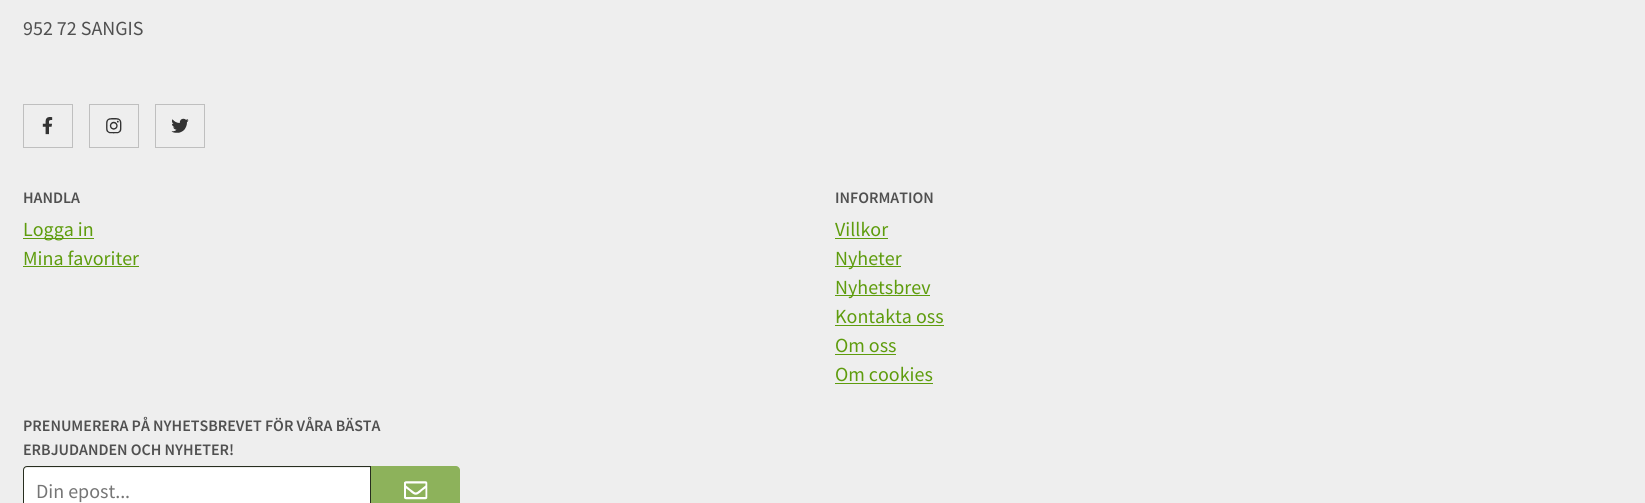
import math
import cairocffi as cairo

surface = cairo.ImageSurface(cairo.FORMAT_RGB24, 1645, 503)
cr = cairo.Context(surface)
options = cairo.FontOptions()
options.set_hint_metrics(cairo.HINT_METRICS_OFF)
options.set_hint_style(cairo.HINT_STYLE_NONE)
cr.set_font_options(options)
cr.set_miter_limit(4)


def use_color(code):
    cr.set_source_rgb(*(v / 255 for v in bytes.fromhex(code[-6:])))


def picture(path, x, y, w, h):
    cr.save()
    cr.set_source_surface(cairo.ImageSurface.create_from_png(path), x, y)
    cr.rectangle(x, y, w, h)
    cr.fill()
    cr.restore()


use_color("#eeeeee")
cr.paint()
cr.select_font_face("Source Sans Pro")
cr.set_font_size(20)
use_color("#505050")
cr.move_to(23, 35)
cr.show_text("952 72 SANGIS")
cr.rectangle(23.5, 104.5, 49, 43)
use_color("#bfbfbf")
cr.set_line_width(1)
cr.stroke()
picture("img1.png", 42, 117, 11, 18)
cr.rectangle(89.5, 104.5, 49, 43)
cr.stroke()
picture("img2.png", 106, 118, 16, 16)
cr.rectangle(155.5, 104.5, 49, 43)
cr.stroke()
picture("img3.png", 171, 118, 18, 15)
cr.select_font_face("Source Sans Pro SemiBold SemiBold")
cr.set_font_size(16)
use_color("#505050")
cr.move_to(23, 203)
cr.show_text("HANDLA")
use_color("#5e9c0d")
cr.rectangle(23, 238, 71, 1)
cr.fill()
cr.select_font_face("Source Sans Pro")
cr.set_font_size(20)
cr.move_to(23, 236)
cr.show_text("Logga in")
cr.move_to(23, 265)
cr.show_text("Mina favoriter")
cr.rectangle(23, 266, 116, 1)
cr.fill()
cr.select_font_face("Source Sans Pro SemiBold SemiBold")
cr.set_font_size(16)
use_color("#505050")
cr.move_to(835, 203)
cr.show_text("INFORMATION")
cr.select_font_face("Source Sans Pro")
cr.set_font_size(20)
use_color("#5e9c0d")
cr.move_to(835, 236)
cr.show_text("Villkor")
cr.rectangle(835, 238, 53, 1)
cr.fill()
cr.rectangle(835, 266, 66, 1)
cr.fill()
cr.move_to(835, 265)
cr.show_text("Nyheter")
cr.rectangle(835, 295, 95, 1)
cr.fill()
cr.move_to(835, 294)
cr.show_text("Nyhetsbrev")
cr.move_to(835, 323)
cr.show_text("Kontakta oss")
cr.rectangle(835, 325, 109, 1)
cr.fill()
cr.move_to(835, 352)
cr.show_text("Om oss")
cr.rectangle(835, 354, 61, 1)
cr.fill()
cr.move_to(835, 381)
cr.show_text("Om cookies")
cr.rectangle(835, 383, 98, 1)
cr.fill()
cr.select_font_face("Source Sans Pro SemiBold SemiBold")
cr.set_font_size(16)
use_color("#505050")
cr.move_to(23, 431)
cr.show_text("PRENUMERERA PÅ NYHETSBREVET FÖR VÅRA BÄSTA")
cr.move_to(23, 455)
cr.show_text("ERBJUDANDEN OCH NYHETER!")
use_color("#ffffff")
cr.new_path()
cr.move_to(26.5, 468)
cr.line_to(370, 468)
cr.line_to(370, 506)
cr.line_to(26.5, 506)
cr.curve_to(25, 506, 24, 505, 24, 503.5)
cr.line_to(24, 470.5)
cr.curve_to(24, 469, 25, 468, 26.5, 468)
cr.close_path()
cr.fill()
cr.new_path()
cr.move_to(27, 466.5)
cr.line_to(370.5, 466.5)
cr.line_to(370.5, 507.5)
cr.line_to(27, 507.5)
cr.curve_to(25, 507.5, 23.5, 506, 23.5, 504)
cr.line_to(23.5, 470)
cr.curve_to(23.5, 468, 25, 466.5, 27, 466.5)
cr.close_path()
use_color("#282e1f")
cr.stroke()
cr.select_font_face("Source Sans Pro")
cr.set_font_size(20)
use_color("#757575")
cr.move_to(36, 498)
cr.show_text("Din epost...")
use_color("#8db25b")
cr.new_path()
cr.move_to(371, 466)
cr.line_to(456, 466)
cr.curve_to(458, 466, 460, 468, 460, 470)
cr.line_to(460, 503)
cr.curve_to(460, 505, 458, 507, 456, 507)
cr.line_to(371, 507)
cr.close_path()
cr.fill()
picture("img4.png", 404, 481, 24, 19)
surface.write_to_png("result.png")
